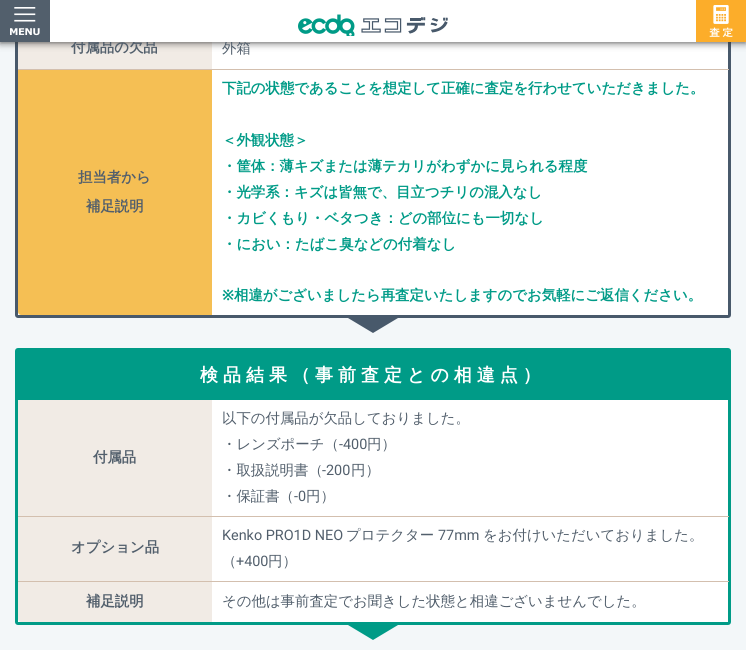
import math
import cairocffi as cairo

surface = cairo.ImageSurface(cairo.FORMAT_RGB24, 746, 650)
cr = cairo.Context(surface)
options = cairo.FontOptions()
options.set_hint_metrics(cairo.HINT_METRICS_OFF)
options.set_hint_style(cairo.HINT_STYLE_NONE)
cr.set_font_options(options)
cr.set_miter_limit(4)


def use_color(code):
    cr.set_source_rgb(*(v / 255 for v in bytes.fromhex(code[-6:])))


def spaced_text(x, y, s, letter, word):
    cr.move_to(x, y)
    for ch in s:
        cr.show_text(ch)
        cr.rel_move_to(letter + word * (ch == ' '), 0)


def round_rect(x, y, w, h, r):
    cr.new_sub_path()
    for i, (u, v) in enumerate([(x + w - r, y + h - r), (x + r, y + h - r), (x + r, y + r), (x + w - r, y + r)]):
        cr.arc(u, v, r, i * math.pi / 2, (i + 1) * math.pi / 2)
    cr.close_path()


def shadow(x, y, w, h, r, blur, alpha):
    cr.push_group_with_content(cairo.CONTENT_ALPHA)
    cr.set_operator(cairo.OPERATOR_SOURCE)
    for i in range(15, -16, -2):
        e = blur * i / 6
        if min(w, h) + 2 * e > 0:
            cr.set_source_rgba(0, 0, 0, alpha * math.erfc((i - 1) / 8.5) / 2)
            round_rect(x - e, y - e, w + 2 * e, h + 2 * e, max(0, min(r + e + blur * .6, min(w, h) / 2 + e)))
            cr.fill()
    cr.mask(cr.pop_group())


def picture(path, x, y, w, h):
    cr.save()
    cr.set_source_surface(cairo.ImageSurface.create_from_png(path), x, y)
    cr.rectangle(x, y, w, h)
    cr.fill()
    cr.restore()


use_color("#f3f7f9")
cr.paint()
use_color("#ffffff")
round_rect(16.5, -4.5, 713, 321, 1.5)
cr.fill_preserve()
use_color("#48596b")
cr.set_line_width(3)
cr.stroke()
use_color("#f1ebe5")
cr.rectangle(18, 42, 194, 27)
cr.fill()
use_color("#333333")
shadow(0, 0, 746, 42, 0, 4, 1)
cr.select_font_face("WenQuanYi Zen Hei", cairo.FONT_SLANT_NORMAL, cairo.FONT_WEIGHT_BOLD)
cr.set_font_size(14.4)
use_color("#525f6c")
cr.move_to(71, 52)
cr.show_text("付属品の欠品")
cr.select_font_face("WenQuanYi Zen Hei Medium")
cr.move_to(222, 53)
cr.show_text("外箱")
use_color("#ffffff")
cr.rectangle(50, 0, 646, 42)
cr.fill()
use_color("#525f6c")
cr.rectangle(0, 0, 50, 42)
cr.fill()
picture("img1.png", 10, 7, 30, 29)
picture("img2.png", 298, 14, 150, 22)
use_color("#fcad2a")
cr.rectangle(696, 0, 50, 42)
cr.fill()
picture("img3.png", 709, 5, 24, 32)
use_color("#d3bfae")
cr.rectangle(18, 69, 711, 1)
cr.fill()
use_color("#f5bf54")
cr.new_path()
cr.move_to(18, 70)
cr.line_to(212, 70)
cr.line_to(212, 315)
cr.line_to(21, 315)
cr.curve_to(19.5, 315, 18, 313.5, 18, 312)
cr.close_path()
cr.fill()
cr.select_font_face("WenQuanYi Zen Hei", cairo.FONT_SLANT_NORMAL, cairo.FONT_WEIGHT_BOLD)
use_color("#525f6c")
cr.move_to(78, 182)
cr.show_text("担当者から")
cr.move_to(86, 211)
cr.show_text("補足説明")
use_color("#009b87")
cr.move_to(222, 93)
cr.show_text("下記の状態であることを想定して正確に査定を行わせていただきました。")
cr.move_to(222, 145)
cr.show_text("＜外観状態＞")
cr.move_to(222, 171)
cr.show_text("・筐体：薄キズまたは薄テカリがわずかに見られる程度")
cr.move_to(222, 197)
cr.show_text("・光学系：キズは皆無で、目立つチリの混入なし")
cr.move_to(222, 223)
cr.show_text("・カビくもり・ベタつき：どの部位にも一切なし")
cr.move_to(222, 249)
cr.show_text("・におい：たばこ臭などの付着なし")
cr.select_font_face("Noto Sans", cairo.FONT_SLANT_NORMAL, cairo.FONT_WEIGHT_BOLD)
cr.move_to(222, 300)
cr.show_text("※")
cr.select_font_face("WenQuanYi Zen Hei", cairo.FONT_SLANT_NORMAL, cairo.FONT_WEIGHT_BOLD)
cr.move_to(234, 300)
cr.show_text("相違がございましたら再査定いたしますのでお気軽にご返信ください。")
use_color("#48596b")
cr.new_path()
cr.move_to(348, 318)
cr.line_to(398, 318)
cr.line_to(373, 333)
cr.close_path()
cr.fill()
use_color("#ffffff")
round_rect(16.5, 349.5, 713, 274, 1.5)
cr.fill_preserve()
use_color("#009b87")
cr.stroke()
cr.rectangle(18, 351, 710, 49)
cr.fill()
cr.set_font_size(18)
use_color("#ffffff")
spaced_text(200, 381, "検品結果（事前査定との相違点）", 5, 0)
use_color("#d3bfae")
cr.rectangle(18, 516, 711, 1)
cr.fill()
use_color("#f1ebe5")
cr.rectangle(18, 400, 194, 116)
cr.fill()
cr.set_font_size(14.4)
use_color("#525f6c")
cr.move_to(93, 462)
cr.show_text("付属品")
cr.select_font_face("WenQuanYi Zen Hei Medium")
cr.move_to(222, 423)
cr.show_text("以下の付属品が欠品しておりました。")
cr.move_to(222, 449)
cr.show_text("・レンズポーチ（")
cr.select_font_face("Roboto")
cr.move_to(339, 449)
cr.show_text("-400")
cr.select_font_face("WenQuanYi Zen Hei Medium")
cr.move_to(367, 449)
cr.show_text("円）")
cr.move_to(222, 475)
cr.show_text("・取扱説明書（")
cr.select_font_face("Roboto")
cr.move_to(322, 475)
cr.show_text("-200")
cr.select_font_face("WenQuanYi Zen Hei Medium")
cr.move_to(351, 475)
cr.show_text("円）")
cr.move_to(222, 501)
cr.show_text("・保証書（")
cr.select_font_face("Roboto")
cr.move_to(294, 501)
cr.show_text("-0")
cr.select_font_face("WenQuanYi Zen Hei Medium")
cr.move_to(306, 501)
cr.show_text("円）")
use_color("#f1ebe5")
cr.new_path()
cr.move_to(18, 581)
cr.line_to(212, 581)
cr.line_to(212, 622)
cr.line_to(21, 622)
cr.curve_to(19.5, 622, 18, 620.5, 18, 619)
cr.close_path()
cr.fill()
use_color("#d3bfae")
cr.rectangle(18, 581, 711, 1)
cr.fill()
use_color("#f1ebe5")
cr.rectangle(18, 517, 194, 64)
cr.fill()
cr.select_font_face("WenQuanYi Zen Hei", cairo.FONT_SLANT_NORMAL, cairo.FONT_WEIGHT_BOLD)
use_color("#525f6c")
cr.move_to(71, 552)
cr.show_text("オプション品")
cr.select_font_face("Roboto")
cr.move_to(222, 540)
cr.show_text("Kenko PRO1D NEO")
cr.select_font_face("WenQuanYi Zen Hei Medium")
cr.move_to(346, 540)
cr.show_text("プロテクター")
cr.select_font_face("Roboto")
cr.move_to(438, 540)
cr.show_text("77mm")
cr.select_font_face("WenQuanYi Zen Hei Medium")
cr.move_to(483, 540)
cr.show_text("をお付けいただいておりました。")
cr.move_to(222, 566)
cr.show_text("（")
cr.select_font_face("Roboto")
cr.move_to(236, 566)
cr.show_text("+400")
cr.select_font_face("WenQuanYi Zen Hei Medium")
cr.move_to(268, 566)
cr.show_text("円）")
cr.select_font_face("WenQuanYi Zen Hei", cairo.FONT_SLANT_NORMAL, cairo.FONT_WEIGHT_BOLD)
cr.move_to(86, 606)
cr.show_text("補足説明")
cr.select_font_face("WenQuanYi Zen Hei Medium")
cr.move_to(222, 606)
cr.show_text("その他は事前査定でお聞きした状態と相違ございませんでした。")
use_color("#009b87")
cr.new_path()
cr.move_to(348, 625)
cr.line_to(398, 625)
cr.line_to(373, 640)
cr.close_path()
cr.fill()
surface.write_to_png("result.png")
